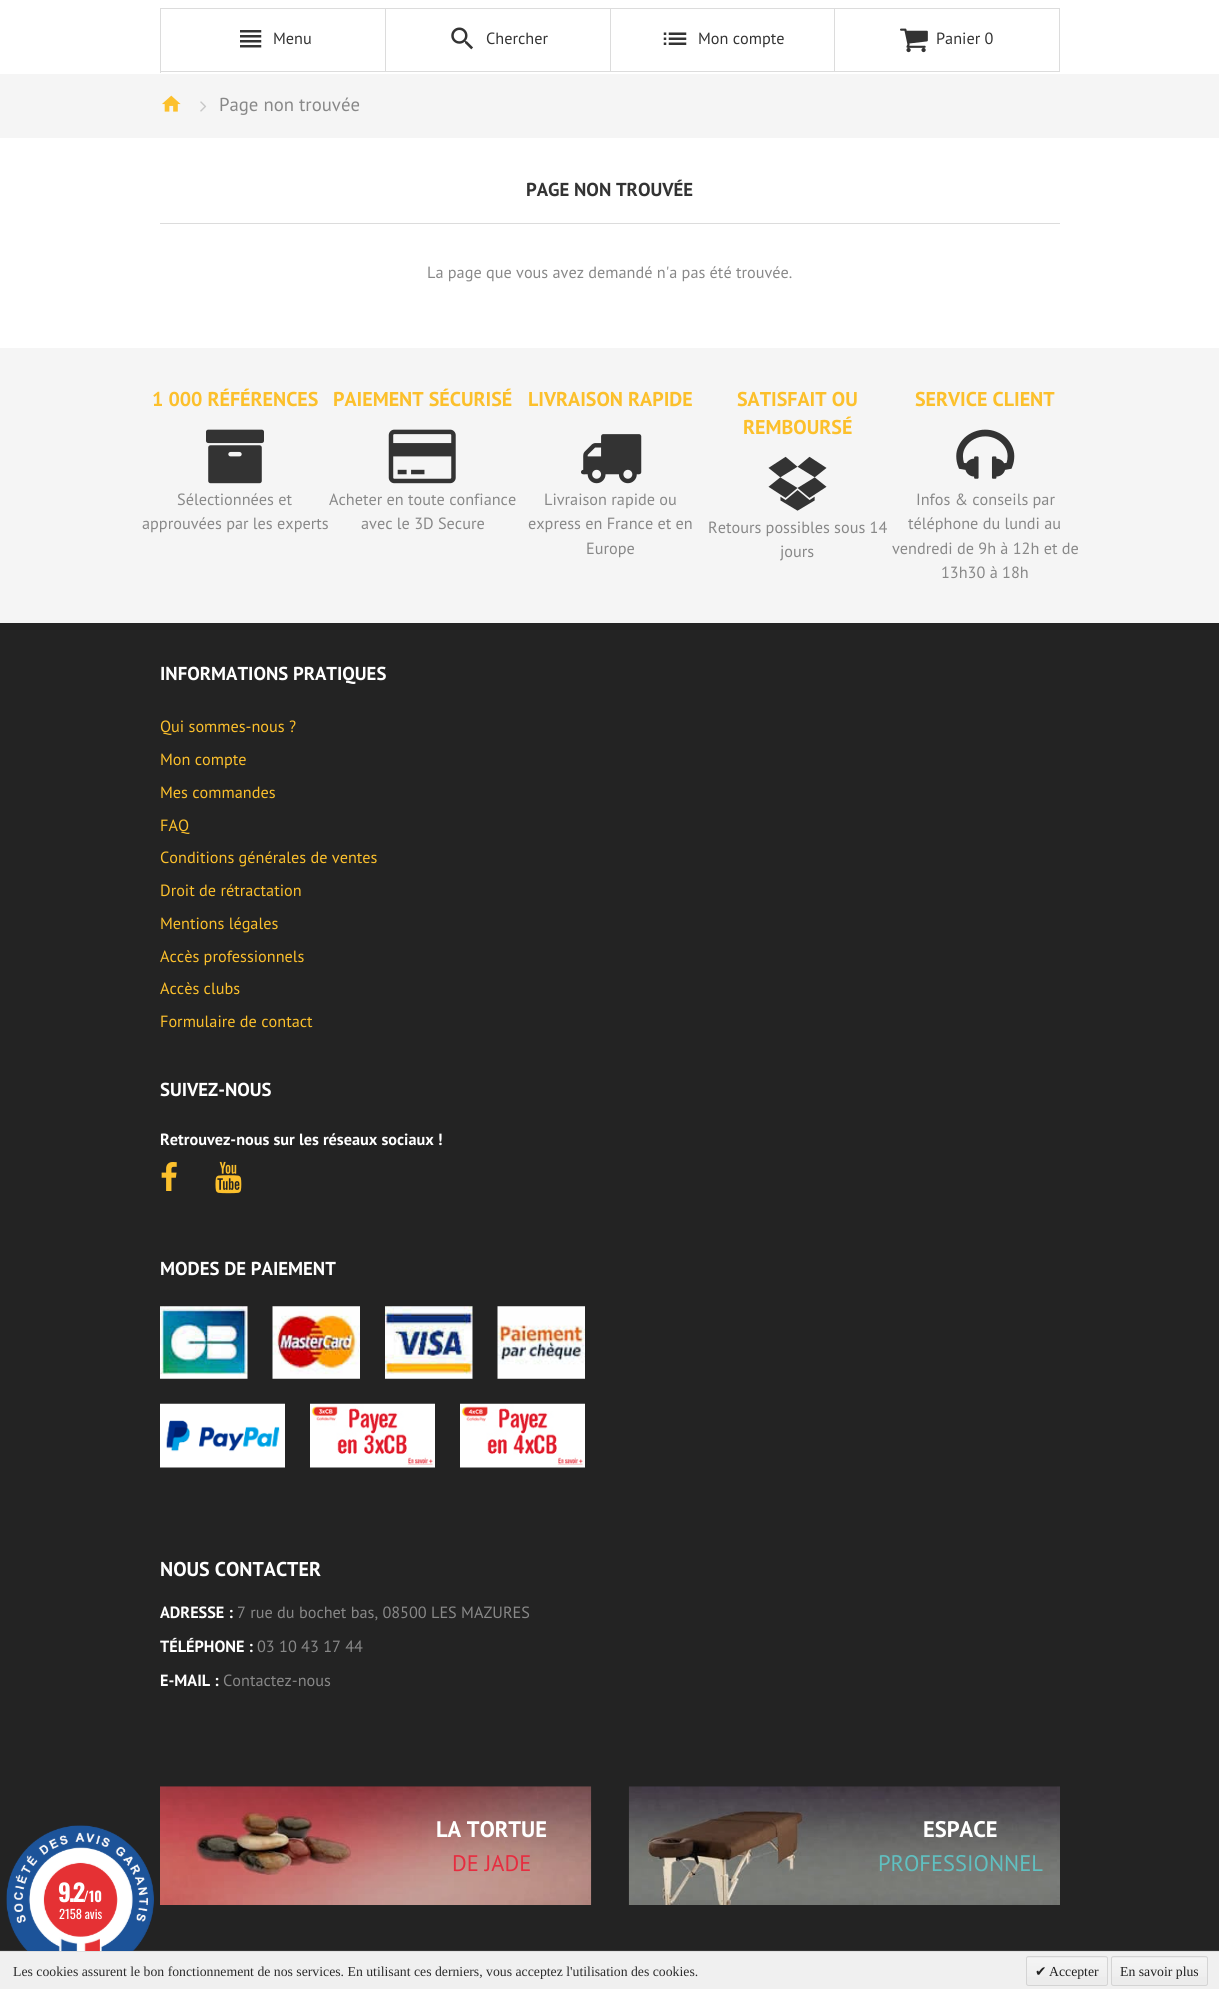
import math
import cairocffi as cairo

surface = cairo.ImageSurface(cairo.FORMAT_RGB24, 1219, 1989)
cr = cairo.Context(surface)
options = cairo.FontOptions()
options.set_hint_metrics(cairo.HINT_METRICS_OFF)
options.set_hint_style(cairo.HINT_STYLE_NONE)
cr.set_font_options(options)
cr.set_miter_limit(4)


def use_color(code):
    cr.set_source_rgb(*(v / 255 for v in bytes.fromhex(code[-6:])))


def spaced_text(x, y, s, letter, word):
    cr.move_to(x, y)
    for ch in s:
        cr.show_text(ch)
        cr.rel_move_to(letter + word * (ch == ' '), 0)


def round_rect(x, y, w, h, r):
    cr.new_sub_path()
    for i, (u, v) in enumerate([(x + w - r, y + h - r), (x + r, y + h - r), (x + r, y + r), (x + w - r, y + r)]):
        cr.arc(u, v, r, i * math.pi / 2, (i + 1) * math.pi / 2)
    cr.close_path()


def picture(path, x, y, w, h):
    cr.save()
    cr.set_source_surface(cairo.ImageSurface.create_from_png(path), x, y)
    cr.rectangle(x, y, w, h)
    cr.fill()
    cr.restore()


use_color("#ffffff")
cr.paint()
use_color("#dcdcdc")
cr.rectangle(160, 8, 900, 1)
cr.fill()
cr.rectangle(160, 71, 900, 1)
cr.fill()
cr.rectangle(160, 8, 1, 65)
cr.fill()
cr.rectangle(385, 9, 1, 62)
cr.fill()
picture("img1.png", 240, 30, 22, 18)
cr.select_font_face("PT Sans")
cr.set_font_size(16.25)
use_color("#333333")
cr.move_to(273, 44)
cr.show_text("Menu")
use_color("#dcdcdc")
cr.rectangle(610, 9, 1, 62)
cr.fill()
picture("img2.png", 451, 27, 22, 23)
use_color("#333333")
cr.move_to(486, 44)
cr.show_text("Chercher")
use_color("#dcdcdc")
cr.rectangle(834, 9, 1, 62)
cr.fill()
picture("img3.png", 663, 32, 24, 13)
use_color("#333333")
cr.move_to(698, 44)
cr.show_text("Mon compte")
use_color("#dcdcdc")
cr.rectangle(1059, 9, 1, 62)
cr.fill()
picture("img4.png", 900, 28, 28, 25)
use_color("#333333")
cr.move_to(936, 44)
cr.show_text("Panier 0")
use_color("#f5f5f5")
cr.rectangle(0, 74, 1219, 64)
cr.fill()
picture("img5.png", 162, 95, 19, 17)
picture("img6.png", 200, 101, 7, 11)
cr.set_font_size(18.75)
use_color("#888888")
cr.move_to(219, 111)
cr.show_text("Page non trouvée")
use_color("#dcdcdc")
cr.rectangle(160, 223, 900, 1)
cr.fill()
cr.select_font_face("PT Sans", cairo.FONT_SLANT_NORMAL, cairo.FONT_WEIGHT_BOLD)
use_color("#333333")
cr.move_to(526, 196)
cr.show_text("PAGE NON TROUVÉE")
cr.select_font_face("PT Sans")
cr.set_font_size(16.25)
use_color("#888888")
cr.move_to(427, 278)
cr.show_text("La page que vous avez demandé n'a pas été trouvée.")
use_color("#f5f5f5")
cr.rectangle(0, 348, 1219, 275)
cr.fill()
cr.select_font_face("PT Sans", cairo.FONT_SLANT_NORMAL, cairo.FONT_WEIGHT_BOLD)
cr.set_font_size(20)
use_color("#fcc02c")
cr.move_to(152, 406)
cr.show_text("1 000 RÉFÉRENCES")
picture("img7.png", 206, 429, 58, 55)
cr.select_font_face("PT Sans")
cr.set_font_size(16.25)
use_color("#888888")
cr.move_to(177, 505)
cr.show_text("Sélectionnées et")
cr.move_to(142, 529)
cr.show_text("approuvées par les experts")
cr.select_font_face("PT Sans", cairo.FONT_SLANT_NORMAL, cairo.FONT_WEIGHT_BOLD)
cr.set_font_size(20)
use_color("#fcc02c")
cr.move_to(333, 406)
cr.show_text("PAIEMENT SÉCURISÉ")
picture("img8.png", 388, 429, 68, 55)
cr.select_font_face("PT Sans")
cr.set_font_size(16.25)
use_color("#888888")
cr.move_to(329, 505)
cr.show_text("Acheter en toute confiance")
cr.move_to(361, 529)
cr.show_text("avec le 3D Secure")
cr.select_font_face("PT Sans", cairo.FONT_SLANT_NORMAL, cairo.FONT_WEIGHT_BOLD)
cr.set_font_size(20)
use_color("#fcc02c")
cr.move_to(528, 406)
cr.show_text("LIVRAISON RAPIDE")
picture("img9.png", 581, 434, 61, 50)
cr.select_font_face("PT Sans")
cr.set_font_size(16.25)
use_color("#888888")
cr.move_to(544, 505)
cr.show_text("Livraison rapide ou")
cr.move_to(528, 529)
cr.show_text("express en France et en")
cr.move_to(586, 554)
cr.show_text("Europe")
cr.select_font_face("PT Sans", cairo.FONT_SLANT_NORMAL, cairo.FONT_WEIGHT_BOLD)
cr.set_font_size(20)
use_color("#fcc02c")
cr.move_to(737, 406)
cr.show_text("SATISFAIT OU")
cr.move_to(743, 434)
cr.show_text("REMBOURSÉ")
picture("img10.png", 768, 456, 59, 55)
cr.select_font_face("PT Sans")
cr.set_font_size(16.25)
use_color("#888888")
cr.move_to(708, 533)
cr.show_text("Retours possibles sous 14")
cr.move_to(780, 557)
cr.show_text("jours")
cr.select_font_face("PT Sans", cairo.FONT_SLANT_NORMAL, cairo.FONT_WEIGHT_BOLD)
cr.set_font_size(20)
use_color("#fcc02c")
cr.move_to(915, 406)
cr.show_text("SERVICE CLIENT")
picture("img11.png", 956, 429, 59, 50)
cr.select_font_face("PT Sans")
cr.set_font_size(16.25)
use_color("#888888")
cr.move_to(916, 505)
cr.show_text("Infos & conseils par")
cr.move_to(908, 529)
cr.show_text("téléphone du lundi au")
cr.move_to(892, 554)
cr.show_text("vendredi de 9h à 12h et de")
cr.move_to(941, 578)
cr.show_text("13h30 à 18h")
use_color("#232323")
cr.rectangle(0, 623, 1219, 1327)
cr.fill()
cr.select_font_face("PT Sans", cairo.FONT_SLANT_NORMAL, cairo.FONT_WEIGHT_BOLD)
cr.set_font_size(18.75)
use_color("#ffffff")
cr.move_to(160, 680)
cr.show_text("INFORMATIONS PRATIQUES")
cr.select_font_face("PT Sans")
cr.set_font_size(16.25)
use_color("#fcc02c")
cr.move_to(160, 732)
cr.show_text("Qui sommes-nous ?")
cr.move_to(160, 765)
cr.show_text("Mon compte")
cr.move_to(160, 798)
cr.show_text("Mes commandes")
cr.move_to(160, 831)
cr.show_text("FAQ")
cr.move_to(160, 863)
cr.show_text("Conditions générales de ventes")
cr.move_to(160, 896)
cr.show_text("Droit de rétractation")
cr.move_to(160, 929)
cr.show_text("Mentions légales")
cr.move_to(160, 962)
cr.show_text("Accès professionnels")
cr.move_to(160, 994)
cr.show_text("Accès clubs")
cr.move_to(160, 1027)
cr.show_text("Formulaire de contact")
cr.select_font_face("PT Sans", cairo.FONT_SLANT_NORMAL, cairo.FONT_WEIGHT_BOLD)
cr.set_font_size(18.75)
use_color("#ffffff")
cr.move_to(160, 1096)
cr.show_text("SUIVEZ-NOUS")
cr.set_font_size(16.25)
cr.move_to(160, 1145)
cr.show_text("Retrouvez-nous sur les réseaux sociaux !")
picture("img12.png", 161, 1162, 16, 29)
picture("img13.png", 215, 1161, 27, 33)
cr.set_font_size(18.75)
cr.move_to(160, 1275)
cr.show_text("MODES DE PAIEMENT")
picture("img14.png", 160, 1306, 88, 73)
picture("img15.png", 272, 1306, 88, 73)
picture("img16.png", 385, 1306, 88, 73)
picture("img17.png", 497, 1306, 88, 73)
picture("img18.png", 160, 1403, 125, 65)
picture("img19.png", 310, 1403, 125, 65)
picture("img20.png", 460, 1403, 125, 65)
cr.set_font_size(20)
cr.move_to(160, 1576)
cr.show_text("NOUS CONTACTER")
cr.set_font_size(16.25)
cr.move_to(160, 1618)
cr.show_text("ADRESSE :")
cr.select_font_face("PT Sans")
use_color("#888888")
cr.move_to(237, 1618)
cr.show_text("7 rue du bochet bas, 08500 LES MAZURES")
cr.select_font_face("PT Sans", cairo.FONT_SLANT_NORMAL, cairo.FONT_WEIGHT_BOLD)
use_color("#ffffff")
cr.move_to(160, 1652)
cr.show_text("TÉLÉPHONE :")
cr.select_font_face("PT Sans")
use_color("#888888")
cr.move_to(257, 1652)
cr.show_text("03 10 43 17 44")
cr.select_font_face("PT Sans", cairo.FONT_SLANT_NORMAL, cairo.FONT_WEIGHT_BOLD)
use_color("#ffffff")
cr.move_to(160, 1686)
cr.show_text("E-MAIL :")
cr.select_font_face("PT Sans")
use_color("#888888")
cr.move_to(223, 1686)
cr.show_text("Contactez-nous")
picture("img21.png", 160, 1786, 432, 119)
cr.select_font_face("PT Sans", cairo.FONT_SLANT_NORMAL, cairo.FONT_WEIGHT_BOLD)
cr.set_font_size(22.5)
use_color("#ffffff")
cr.move_to(436, 1837)
cr.show_text("LA TORTUE")
cr.select_font_face("PT Sans")
use_color("#e62d40")
cr.move_to(452, 1871)
cr.show_text("DE JADE")
picture("img22.png", 628, 1786, 432, 119)
cr.select_font_face("PT Sans", cairo.FONT_SLANT_NORMAL, cairo.FONT_WEIGHT_BOLD)
use_color("#ffffff")
cr.move_to(923, 1837)
cr.show_text("ESPACE")
cr.select_font_face("PT Sans")
use_color("#60c0c1")
cr.move_to(878, 1871)
cr.show_text("PROFESSIONNEL")
use_color("#363636")
cr.rectangle(0, 1950, 1219, 1)
cr.fill()
picture("img23.png", 6, 1825, 148, 126)
cr.select_font_face("Oswald", cairo.FONT_SLANT_NORMAL, cairo.FONT_WEIGHT_BOLD)
cr.set_font_size(24)
use_color("#ffffff")
spaced_text(58, 1902, "9.2", -2, 0)
cr.set_font_size(14)
cr.move_to(83, 1902)
cr.show_text("/10")
cr.select_font_face("Oswald")
cr.set_font_size(12.5)
cr.move_to(59, 1919)
cr.show_text("2158 avis")
use_color("#f0f0f0")
cr.rectangle(0, 1952, 1219, 37)
cr.fill()
use_color("#e0e0e0")
cr.rectangle(0, 1951, 1219, 1)
cr.fill()
cr.select_font_face("Liberation Serif")
cr.set_font_size(13.75)
use_color("#2c2c2c")
cr.move_to(13, 1976)
cr.show_text("Les cookies assurent le bon fonctionnement de nos services. En utilisant ces derniers, vous acceptez l'utilisation des cookies.")
use_color("#ececec")
round_rect(1026, 1956, 82, 30, 2.5)
cr.fill()
gradient = cairo.LinearGradient(1067, 1958, 1067, 1985)
gradient.add_color_stop_rgba(0, 0.957, 0.957, 0.957, 1)
gradient.add_color_stop_rgba(1, 0.925, 0.925, 0.925, 1)
cr.set_source(gradient)
cr.rectangle(1026, 1958, 82, 19)
cr.fill()
round_rect(1026.5, 1956.5, 81, 29, 2)
use_color("#d4d4d4")
cr.set_line_width(1)
cr.stroke()
cr.select_font_face("DejaVu Sans")
use_color("#222222")
cr.move_to(1035, 1976)
cr.show_text("✔")
cr.select_font_face("Liberation Serif")
cr.move_to(1049, 1976)
cr.show_text("Accepter")
use_color("#ececec")
round_rect(1111, 1956, 97, 30, 2.5)
cr.fill()
gradient = cairo.LinearGradient(1159, 1958, 1159, 1985)
gradient.add_color_stop_rgba(0, 0.957, 0.957, 0.957, 1)
gradient.add_color_stop_rgba(1, 0.925, 0.925, 0.925, 1)
cr.set_source(gradient)
cr.rectangle(1111, 1958, 97, 19)
cr.fill()
round_rect(1111.5, 1956.5, 96, 29, 2)
use_color("#d4d4d4")
cr.stroke()
use_color("#222222")
cr.move_to(1120, 1976)
cr.show_text("En savoir plus")
surface.write_to_png("result.png")
